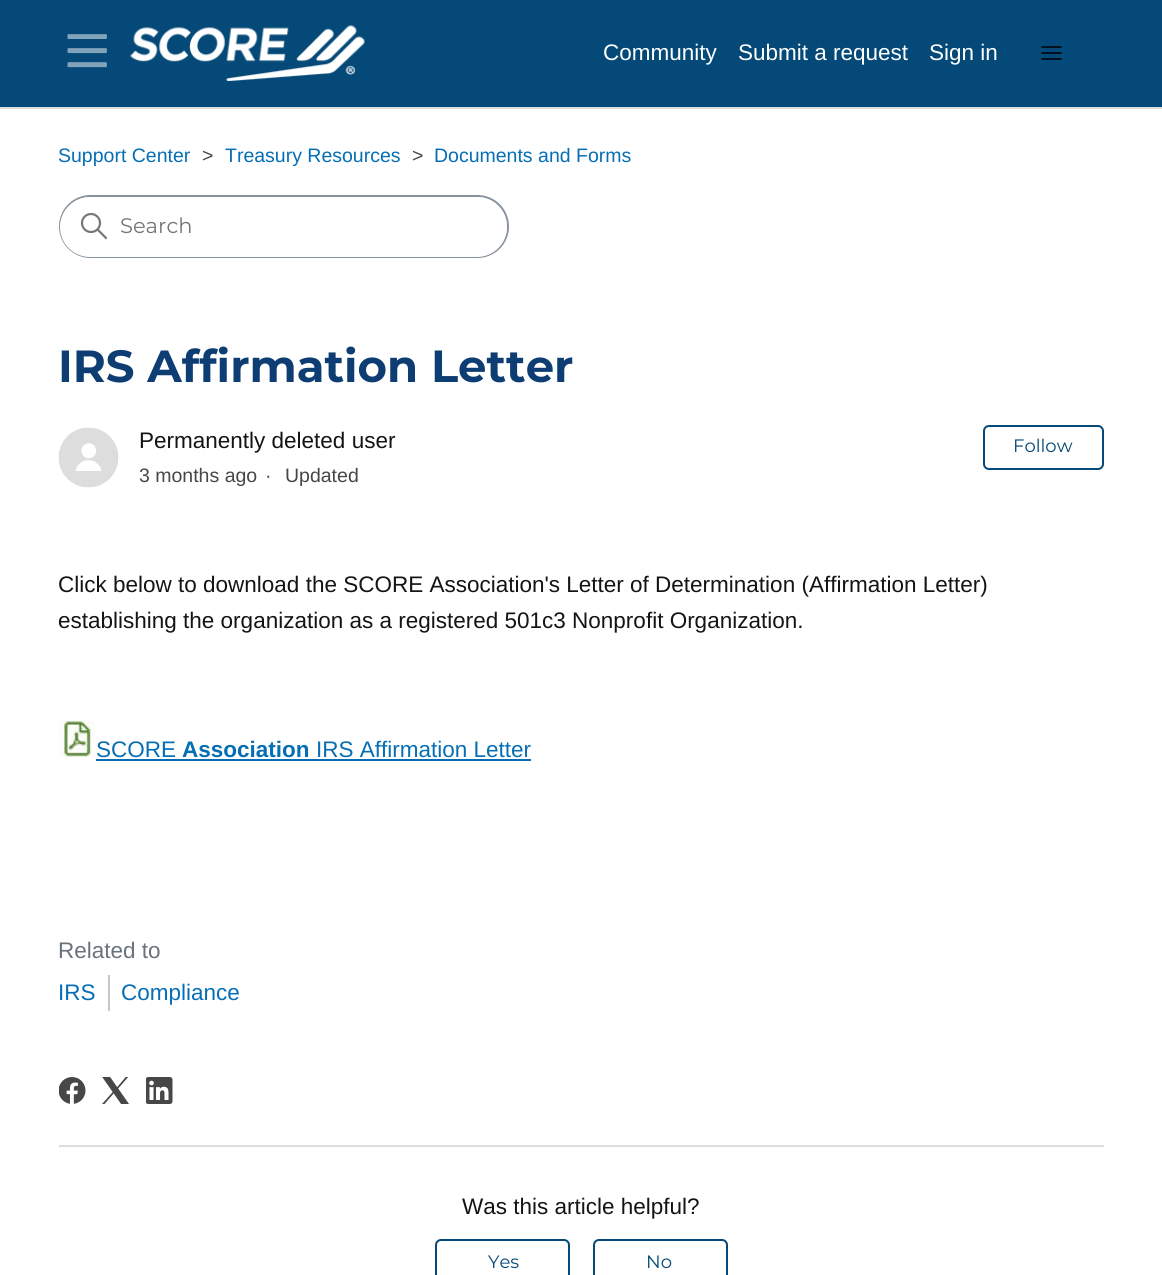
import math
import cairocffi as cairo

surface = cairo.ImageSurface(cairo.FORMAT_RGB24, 1162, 1275)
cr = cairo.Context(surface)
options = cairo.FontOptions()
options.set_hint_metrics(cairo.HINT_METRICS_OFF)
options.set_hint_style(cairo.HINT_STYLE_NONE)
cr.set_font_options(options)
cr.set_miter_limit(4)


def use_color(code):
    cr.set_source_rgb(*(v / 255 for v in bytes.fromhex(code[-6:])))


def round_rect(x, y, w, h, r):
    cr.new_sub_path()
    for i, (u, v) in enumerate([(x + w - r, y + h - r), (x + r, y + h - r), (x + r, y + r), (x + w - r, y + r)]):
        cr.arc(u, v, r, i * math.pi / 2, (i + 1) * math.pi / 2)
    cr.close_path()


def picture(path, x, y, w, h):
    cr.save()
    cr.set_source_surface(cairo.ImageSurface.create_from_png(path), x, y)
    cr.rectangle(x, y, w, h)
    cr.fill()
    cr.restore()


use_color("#ffffff")
cr.paint()
use_color("#044977")
cr.rectangle(0, 0, 1162, 107)
cr.fill()
picture("img1.png", 67, 34, 40, 34)
picture("img2.png", 130, 25, 235, 56)
cr.select_font_face("Liberation Sans")
cr.set_font_size(22.5)
use_color("#ffffff")
cr.move_to(603, 60)
cr.show_text("Community")
cr.move_to(738, 60)
cr.show_text("Submit a request")
cr.move_to(929, 60)
cr.show_text("Sign in")
cr.new_path()
cr.move_to(1042, 47)
cr.line_to(1061, 47)
cr.move_to(1042, 53)
cr.line_to(1061, 53)
cr.move_to(1042, 59)
cr.line_to(1061, 59)
use_color("#000000")
cr.set_line_width(1.5)
cr.set_line_cap(cairo.LINE_CAP_ROUND)
cr.stroke()
use_color("#dddddd")
cr.rectangle(0, 107, 1162, 2)
cr.fill()
cr.set_font_size(19.5)
use_color("#056eb5")
cr.move_to(58, 162)
cr.show_text("Support Center")
use_color("#474747")
cr.move_to(202, 162)
cr.show_text(">")
use_color("#056eb5")
cr.move_to(225, 162)
cr.show_text("Treasury Resources")
use_color("#474747")
cr.move_to(412, 162)
cr.show_text(">")
use_color("#056eb5")
cr.move_to(434, 162)
cr.show_text("Documents and Forms")
round_rect(60, 196, 448, 61, 30.5)
use_color("#87929d")
cr.set_line_width(2)
cr.set_line_cap(cairo.LINE_CAP_BUTT)
cr.stroke()
use_color("#ffffff")
round_rect(60, 197, 447, 60, 30)
cr.fill()
cr.arc(91, 223, 9, 0, 2 * math.pi)
use_color("#777777")
cr.set_line_width(2.2)
cr.stroke()
cr.new_path()
cr.move_to(106, 238)
cr.line_to(98, 230)
cr.set_line_cap(cairo.LINE_CAP_ROUND)
cr.stroke()
cr.select_font_face("Montserrat")
cr.set_font_size(21)
use_color("#757575")
cr.move_to(120, 233)
cr.show_text("Search")
cr.select_font_face("Montserrat", cairo.FONT_SLANT_NORMAL, cairo.FONT_WEIGHT_BOLD)
cr.set_font_size(45)
use_color("#0d3d72")
cr.move_to(58, 382)
cr.show_text("IRS Affirmation Letter")
picture("img3.png", 58, 427, 61, 61)
cr.select_font_face("Liberation Sans")
cr.set_font_size(22.5)
use_color("#141414")
cr.move_to(139, 448)
cr.show_text("Permanently deleted user")
cr.set_font_size(19.5)
use_color("#474747")
cr.move_to(139, 482)
cr.show_text("3 months ago")
cr.move_to(265, 482)
cr.show_text("·")
cr.move_to(285, 482)
cr.show_text("Updated")
round_rect(984, 426, 119, 43, 5)
use_color("#044977")
cr.set_line_width(2)
cr.set_line_cap(cairo.LINE_CAP_BUTT)
cr.stroke()
cr.select_font_face("Montserrat")
cr.set_font_size(18)
cr.move_to(1013, 452)
cr.show_text("Follow")
cr.select_font_face("Liberation Sans")
cr.set_font_size(22.5)
use_color("#141414")
cr.move_to(58, 592)
cr.show_text("Click below to download the SCORE Association's Letter of Determination (Affirmation Letter)")
cr.move_to(58, 628)
cr.show_text("establishing the organization as a registered 501c3 Nonprofit Organization.")
picture("img4.png", 58, 720, 37, 37)
use_color("#056eb5")
cr.move_to(96, 757)
cr.show_text("SCORE")
cr.rectangle(96, 759, 435, 2)
cr.fill()
cr.select_font_face("Liberation Sans", cairo.FONT_SLANT_NORMAL, cairo.FONT_WEIGHT_BOLD)
cr.move_to(182, 757)
cr.show_text("Association")
cr.select_font_face("Liberation Sans")
cr.move_to(316, 757)
cr.show_text("IRS Affirmation Letter")
use_color("#68737d")
cr.move_to(58, 958)
cr.show_text("Related to")
use_color("#c2c8cc")
cr.rectangle(108, 975, 2, 36)
cr.fill()
use_color("#056eb5")
cr.move_to(58, 1000)
cr.show_text("IRS")
cr.move_to(121, 1000)
cr.show_text("Compliance")
picture("img5.png", 59, 1077, 27, 27)
picture("img6.png", 102, 1077, 27, 27)
picture("img7.png", 146, 1077, 27, 27)
use_color("#dddddd")
cr.rectangle(59, 1145, 1045, 2)
cr.fill()
use_color("#141414")
cr.move_to(462, 1214)
cr.show_text("Was this article helpful?")
round_rect(436, 1240, 133, 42, 5)
use_color("#044977")
cr.stroke()
cr.select_font_face("Montserrat")
cr.set_font_size(18)
cr.move_to(488, 1268)
cr.show_text("Yes")
round_rect(594, 1240, 133, 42, 5)
cr.stroke()
cr.move_to(646, 1268)
cr.show_text("No")
surface.write_to_png("result.png")
